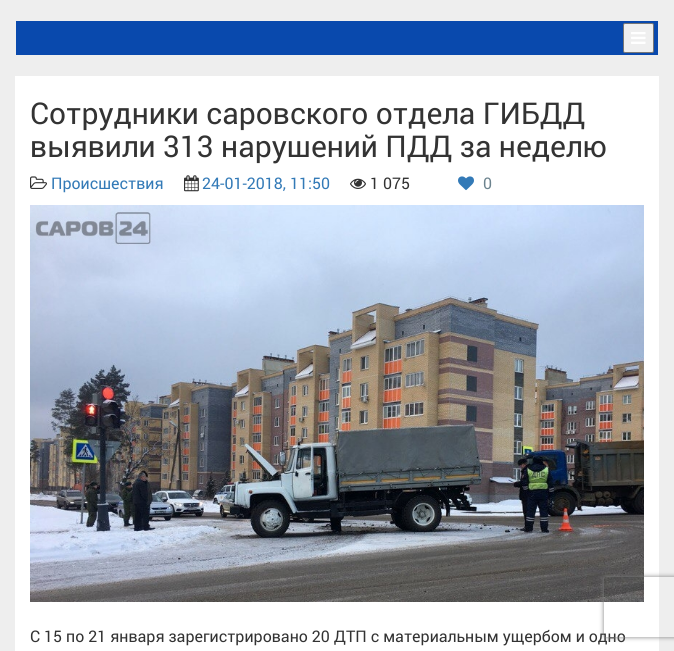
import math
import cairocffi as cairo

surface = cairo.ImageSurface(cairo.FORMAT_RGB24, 674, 651)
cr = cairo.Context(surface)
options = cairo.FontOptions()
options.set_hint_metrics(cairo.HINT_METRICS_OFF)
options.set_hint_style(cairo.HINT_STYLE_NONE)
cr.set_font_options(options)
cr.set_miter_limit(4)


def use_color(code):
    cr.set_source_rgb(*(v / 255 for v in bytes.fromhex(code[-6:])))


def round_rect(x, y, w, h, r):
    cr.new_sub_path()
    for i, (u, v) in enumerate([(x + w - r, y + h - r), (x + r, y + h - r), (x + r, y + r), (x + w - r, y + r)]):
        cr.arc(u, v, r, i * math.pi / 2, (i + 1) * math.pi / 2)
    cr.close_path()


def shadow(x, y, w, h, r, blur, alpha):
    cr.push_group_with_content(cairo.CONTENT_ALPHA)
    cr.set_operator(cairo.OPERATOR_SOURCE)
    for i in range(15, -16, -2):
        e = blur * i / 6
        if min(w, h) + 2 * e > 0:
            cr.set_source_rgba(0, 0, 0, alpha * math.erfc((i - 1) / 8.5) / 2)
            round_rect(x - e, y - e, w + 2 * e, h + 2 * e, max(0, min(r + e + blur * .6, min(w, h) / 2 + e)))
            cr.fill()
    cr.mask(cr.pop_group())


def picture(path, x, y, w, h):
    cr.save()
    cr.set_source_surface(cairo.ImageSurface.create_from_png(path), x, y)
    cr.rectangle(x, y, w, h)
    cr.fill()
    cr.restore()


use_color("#eeeeee")
cr.paint()
use_color("#0949ad")
cr.rectangle(16, 21, 642, 34)
cr.fill()
use_color("#efefef")
round_rect(623.5, 23.5, 30, 29, 1.5)
cr.fill_preserve()
use_color("#767676")
cr.set_line_width(1)
cr.stroke()
picture("img1.png", 631, 32, 15, 12)
use_color("#ffffff")
cr.rectangle(15, 76, 644, 575)
cr.fill()
cr.select_font_face("Roboto")
cr.set_font_size(30)
use_color("#333333")
cr.move_to(30, 124)
cr.show_text("Сотрудники саровского отдела ГИБДД")
cr.move_to(30, 157)
cr.show_text("выявили 313 нарушений ПДД за неделю")
picture("img2.png", 30, 176, 17, 13)
cr.set_font_size(16)
use_color("#337ab7")
cr.move_to(51, 189)
cr.show_text("Происшествия")
picture("img3.png", 184, 175, 15, 17)
cr.move_to(202, 189)
cr.show_text("24-01-2018, 11:50")
picture("img4.png", 350, 178, 16, 11)
use_color("#333333")
cr.move_to(370, 189)
cr.show_text("1 075")
picture("img5.png", 458, 176, 16, 15)
use_color("#6c838e")
cr.move_to(483, 189)
cr.show_text("0")
picture("img6.png", 30, 205, 614, 397)
use_color("#333333")
cr.move_to(30, 642)
cr.show_text("С 15 по 21 января зарегистрировано 20 ДТП с материальным ущербом и одно")
cr.save()
cr.set_fill_rule(cairo.FILL_RULE_EVEN_ODD)
cr.new_path()
cr.move_to(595, 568)
cr.line_to(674, 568)
cr.line_to(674, 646)
cr.line_to(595, 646)
cr.close_path()
cr.move_to(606, 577)
cr.line_to(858, 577)
cr.curve_to(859, 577, 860, 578, 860, 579)
cr.line_to(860, 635)
cr.curve_to(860, 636, 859, 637, 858, 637)
cr.line_to(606, 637)
cr.curve_to(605, 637, 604, 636, 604, 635)
cr.line_to(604, 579)
cr.curve_to(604, 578, 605, 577, 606, 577)
cr.close_path()
cr.clip()
use_color("#808080")
shadow(604, 577, 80, 60, 2, 2.5, 1)
cr.restore()
surface.write_to_png("result.png")
